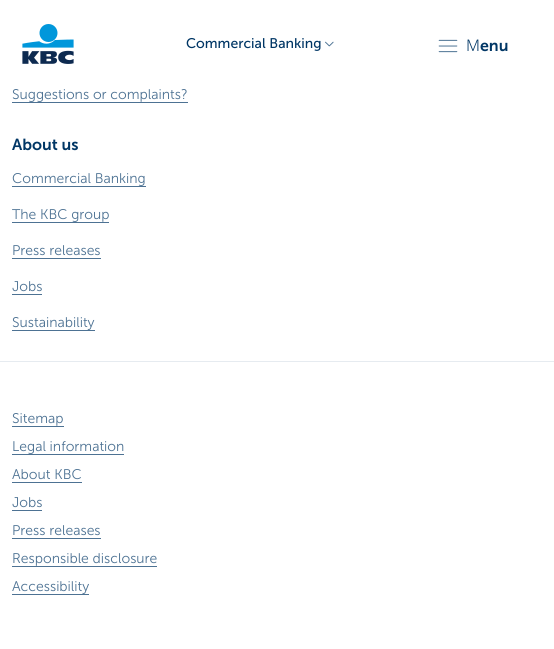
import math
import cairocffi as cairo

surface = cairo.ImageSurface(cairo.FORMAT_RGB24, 554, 649)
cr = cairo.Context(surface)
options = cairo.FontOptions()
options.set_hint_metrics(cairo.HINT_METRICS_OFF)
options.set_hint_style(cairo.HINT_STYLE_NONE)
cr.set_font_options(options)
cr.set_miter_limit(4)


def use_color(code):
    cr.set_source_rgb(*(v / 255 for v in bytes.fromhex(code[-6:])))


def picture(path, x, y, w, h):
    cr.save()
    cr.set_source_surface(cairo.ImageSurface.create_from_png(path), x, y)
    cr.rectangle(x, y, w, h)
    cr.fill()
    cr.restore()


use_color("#ffffff")
cr.paint()
picture("img1.png", 22, 24, 52, 40)
cr.select_font_face("Museo Sans")
cr.set_font_size(14)
use_color("#003665")
cr.move_to(186, 48)
cr.show_text("Commercial Banking")
picture("img2.png", 325, 41, 9, 6)
picture("img3.png", 438, 39, 20, 14)
cr.select_font_face("Noto Sans Light")
cr.set_font_size(16)
cr.move_to(466, 51)
cr.show_text("M")
cr.select_font_face("Museo Sans SemiBold")
cr.move_to(480, 51)
cr.show_text("enu")
cr.select_font_face("Museo Sans Light")
cr.set_font_size(14)
use_color("#4d7293")
cr.move_to(12, 99)
cr.show_text("Suggestions or complaints?")
cr.rectangle(12, 102, 176, 1)
cr.fill()
cr.select_font_face("Museo Sans SemiBold")
cr.set_font_size(16)
use_color("#003665")
cr.move_to(12, 150)
cr.show_text("About us")
cr.select_font_face("Museo Sans Light")
cr.set_font_size(14)
use_color("#4d7293")
cr.move_to(12, 183)
cr.show_text("Commercial Banking")
cr.rectangle(12, 186, 134, 1)
cr.fill()
cr.move_to(12, 219)
cr.show_text("The KBC group")
cr.rectangle(12, 222, 97, 1)
cr.fill()
cr.move_to(12, 255)
cr.show_text("Press releases")
cr.rectangle(12, 258, 89, 1)
cr.fill()
cr.move_to(12, 291)
cr.show_text("Jobs")
cr.rectangle(12, 294, 30, 1)
cr.fill()
cr.move_to(12, 327)
cr.show_text("Sustainability")
cr.rectangle(12, 330, 83, 1)
cr.fill()
use_color("#e6ebf0")
cr.rectangle(0, 361, 554, 1)
cr.fill()
use_color("#4d7293")
cr.move_to(12, 423)
cr.show_text("Sitemap")
cr.rectangle(12, 426, 52, 1)
cr.fill()
cr.move_to(12, 451)
cr.show_text("Legal information")
cr.rectangle(12, 454, 112, 1)
cr.fill()
cr.move_to(12, 479)
cr.show_text("About KBC")
cr.rectangle(12, 482, 70, 1)
cr.fill()
cr.move_to(12, 507)
cr.show_text("Jobs")
cr.rectangle(12, 510, 30, 1)
cr.fill()
cr.move_to(12, 535)
cr.show_text("Press releases")
cr.rectangle(12, 538, 89, 1)
cr.fill()
cr.move_to(12, 563)
cr.show_text("Responsible disclosure")
cr.rectangle(12, 566, 145, 1)
cr.fill()
cr.move_to(12, 591)
cr.show_text("Accessibility")
cr.rectangle(12, 594, 77, 1)
cr.fill()
surface.write_to_png("result.png")
